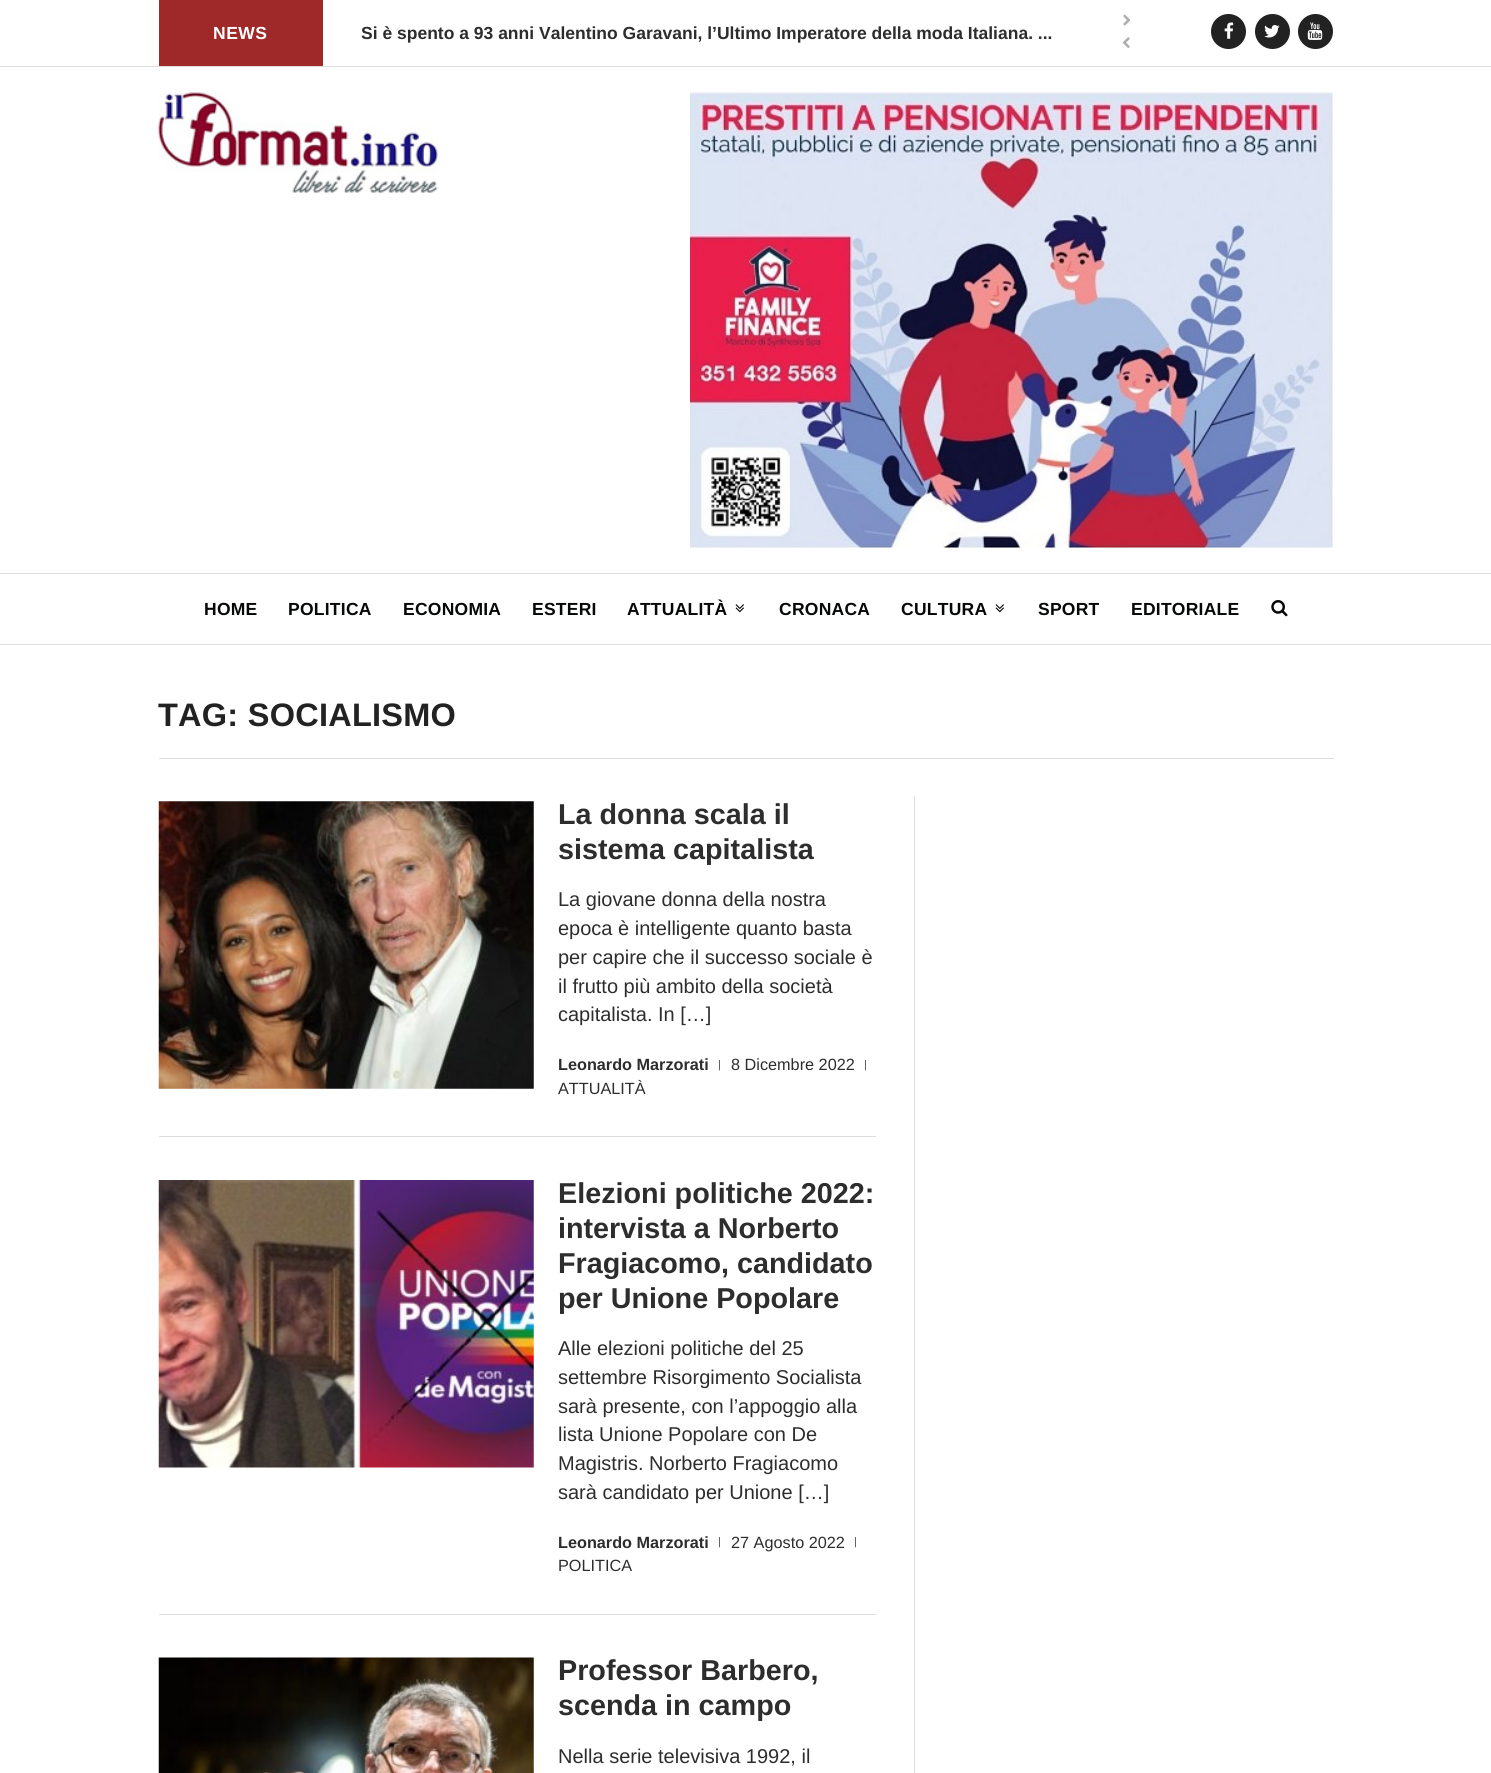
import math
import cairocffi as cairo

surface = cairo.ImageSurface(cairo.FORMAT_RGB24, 1491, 1773)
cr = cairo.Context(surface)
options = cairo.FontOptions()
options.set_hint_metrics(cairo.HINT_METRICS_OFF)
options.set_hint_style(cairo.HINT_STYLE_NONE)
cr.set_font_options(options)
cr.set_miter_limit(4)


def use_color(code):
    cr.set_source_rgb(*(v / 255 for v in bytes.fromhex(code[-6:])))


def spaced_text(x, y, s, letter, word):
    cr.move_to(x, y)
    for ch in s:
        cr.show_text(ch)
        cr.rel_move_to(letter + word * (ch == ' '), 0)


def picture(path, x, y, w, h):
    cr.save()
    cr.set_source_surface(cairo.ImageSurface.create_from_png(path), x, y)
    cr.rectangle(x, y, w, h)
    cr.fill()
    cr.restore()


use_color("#ffffff")
cr.paint()
use_color("#dddddd")
cr.rectangle(0, 66, 1491, 1)
cr.fill()
use_color("#9f2929")
cr.rectangle(159, 0, 164, 66)
cr.fill()
cr.select_font_face("Liberation Sans", cairo.FONT_SLANT_NORMAL, cairo.FONT_WEIGHT_BOLD)
cr.set_font_size(17.5)
use_color("#ffffff")
spaced_text(213, 39, "NEWS", 0.5, 0)
use_color("#2d2d2d")
cr.move_to(361, 39)
cr.show_text("Si è spento a 93 anni Valentino Garavani, l’Ultimo Imperatore della moda Italiana. ...")
picture("img1.png", 1123, 14, 7, 12)
picture("img2.png", 1123, 37, 7, 11)
use_color("#222222")
cr.arc(1228.5, 31.5, 17.5, 0, 2 * math.pi)
cr.fill()
picture("img3.png", 1224, 22, 10, 17)
cr.arc(1272.5, 31.5, 17.5, 0, 2 * math.pi)
cr.fill()
picture("img4.png", 1264, 25, 16, 13)
cr.arc(1315.5, 31.5, 17.5, 0, 2 * math.pi)
cr.fill()
picture("img5.png", 1307, 22, 16, 18)
use_color("#dddddd")
cr.rectangle(0, 573, 1491, 1)
cr.fill()
picture("img6.png", 158, 92, 280, 101)
picture("img7.png", 690, 92, 643, 456)
cr.rectangle(0, 644, 1491, 1)
cr.fill()
use_color("#060807")
spaced_text(204, 615, "HOME", 0.25, 0)
spaced_text(288, 615, "POLITICA", 0.25, 0)
spaced_text(403, 615, "ECONOMIA", 0.25, 0)
spaced_text(532, 615, "ESTERI", 0.25, 0)
spaced_text(627, 615, "ATTUALITÀ", 0.25, 0)
picture("img8.png", 735, 604, 9, 9)
spaced_text(779, 615, "CRONACA", 0.25, 0)
spaced_text(901, 615, "CULTURA", 0.25, 0)
picture("img8.png", 995, 604, 9, 9)
spaced_text(1038, 615, "SPORT", 0.25, 0)
spaced_text(1131, 615, "EDITORIALE", 0.25, 0)
picture("img9.png", 1271, 600, 17, 17)
cr.set_font_size(32.5)
use_color("#222222")
spaced_text(158, 726, "TAG: SOCIALISMO", 0.25, 0)
use_color("#dddddd")
cr.rectangle(159, 758, 1175, 1)
cr.fill()
cr.rectangle(914, 796, 1, 977)
cr.fill()
cr.rectangle(159, 1136, 717, 1)
cr.fill()
picture("img10.png", 158, 801, 376, 288)
cr.set_font_size(28.75)
use_color("#2d2d2d")
cr.move_to(558, 824)
cr.show_text("La donna scala il")
cr.move_to(558, 859)
cr.show_text("sistema capitalista")
cr.select_font_face("Liberation Sans")
cr.set_font_size(20)
cr.move_to(558, 906)
cr.show_text("La giovane donna della nostra")
cr.move_to(558, 935)
cr.show_text("epoca è intelligente quanto basta")
cr.move_to(558, 964)
cr.show_text("per capire che il successo sociale è")
cr.move_to(558, 993)
cr.show_text("il frutto più ambito della società")
cr.move_to(558, 1021)
cr.show_text("capitalista. In […]")
cr.select_font_face("Liberation Sans", cairo.FONT_SLANT_NORMAL, cairo.FONT_WEIGHT_BOLD)
cr.set_font_size(16.25)
cr.move_to(558, 1070)
cr.show_text("Leonardo Marzorati")
cr.select_font_face("Liberation Sans")
cr.set_font_size(11)
use_color("#4d4d4d")
cr.move_to(718, 1068)
cr.show_text("|")
cr.set_font_size(16.25)
use_color("#2d2d2d")
cr.move_to(731, 1070)
cr.show_text("8 Dicembre 2022")
cr.set_font_size(11)
use_color("#4d4d4d")
cr.move_to(864, 1068)
cr.show_text("|")
cr.set_font_size(16.25)
use_color("#2d2d2d")
cr.move_to(558, 1094)
cr.show_text("ATTUALITÀ")
use_color("#dddddd")
cr.rectangle(159, 1614, 717, 1)
cr.fill()
picture("img11.png", 158, 1180, 376, 288)
cr.select_font_face("Liberation Sans", cairo.FONT_SLANT_NORMAL, cairo.FONT_WEIGHT_BOLD)
cr.set_font_size(28.75)
use_color("#2d2d2d")
cr.move_to(558, 1203)
cr.show_text("Elezioni politiche 2022:")
cr.move_to(558, 1238)
cr.show_text("intervista a Norberto")
cr.move_to(558, 1273)
cr.show_text("Fragiacomo, candidato")
cr.move_to(558, 1308)
cr.show_text("per Unione Popolare")
cr.select_font_face("Liberation Sans")
cr.set_font_size(20)
cr.move_to(558, 1355)
cr.show_text("Alle elezioni politiche del 25")
cr.move_to(558, 1384)
cr.show_text("settembre Risorgimento Socialista")
cr.move_to(558, 1413)
cr.show_text("sarà presente, con l’appoggio alla")
cr.move_to(558, 1441)
cr.show_text("lista Unione Popolare con De")
cr.move_to(558, 1470)
cr.show_text("Magistris. Norberto Fragiacomo")
cr.move_to(558, 1499)
cr.show_text("sarà candidato per Unione […]")
cr.select_font_face("Liberation Sans", cairo.FONT_SLANT_NORMAL, cairo.FONT_WEIGHT_BOLD)
cr.set_font_size(16.25)
cr.move_to(558, 1548)
cr.show_text("Leonardo Marzorati")
cr.select_font_face("Liberation Sans")
cr.set_font_size(11)
use_color("#4d4d4d")
cr.move_to(718, 1545)
cr.show_text("|")
cr.set_font_size(16.25)
use_color("#2d2d2d")
cr.move_to(731, 1548)
cr.show_text("27 Agosto 2022")
cr.set_font_size(11)
use_color("#4d4d4d")
cr.move_to(854, 1545)
cr.show_text("|")
cr.set_font_size(16.25)
use_color("#2d2d2d")
cr.move_to(558, 1571)
cr.show_text("POLITICA")
picture("img12.png", 158, 1657, 376, 116)
cr.select_font_face("Liberation Sans", cairo.FONT_SLANT_NORMAL, cairo.FONT_WEIGHT_BOLD)
cr.set_font_size(28.75)
cr.move_to(558, 1680)
cr.show_text("Professor Barbero,")
cr.move_to(558, 1715)
cr.show_text("scenda in campo")
cr.select_font_face("Liberation Sans")
cr.set_font_size(20)
cr.move_to(558, 1763)
cr.show_text("Nella serie televisiva 1992, il")
surface.write_to_png("result.png")
